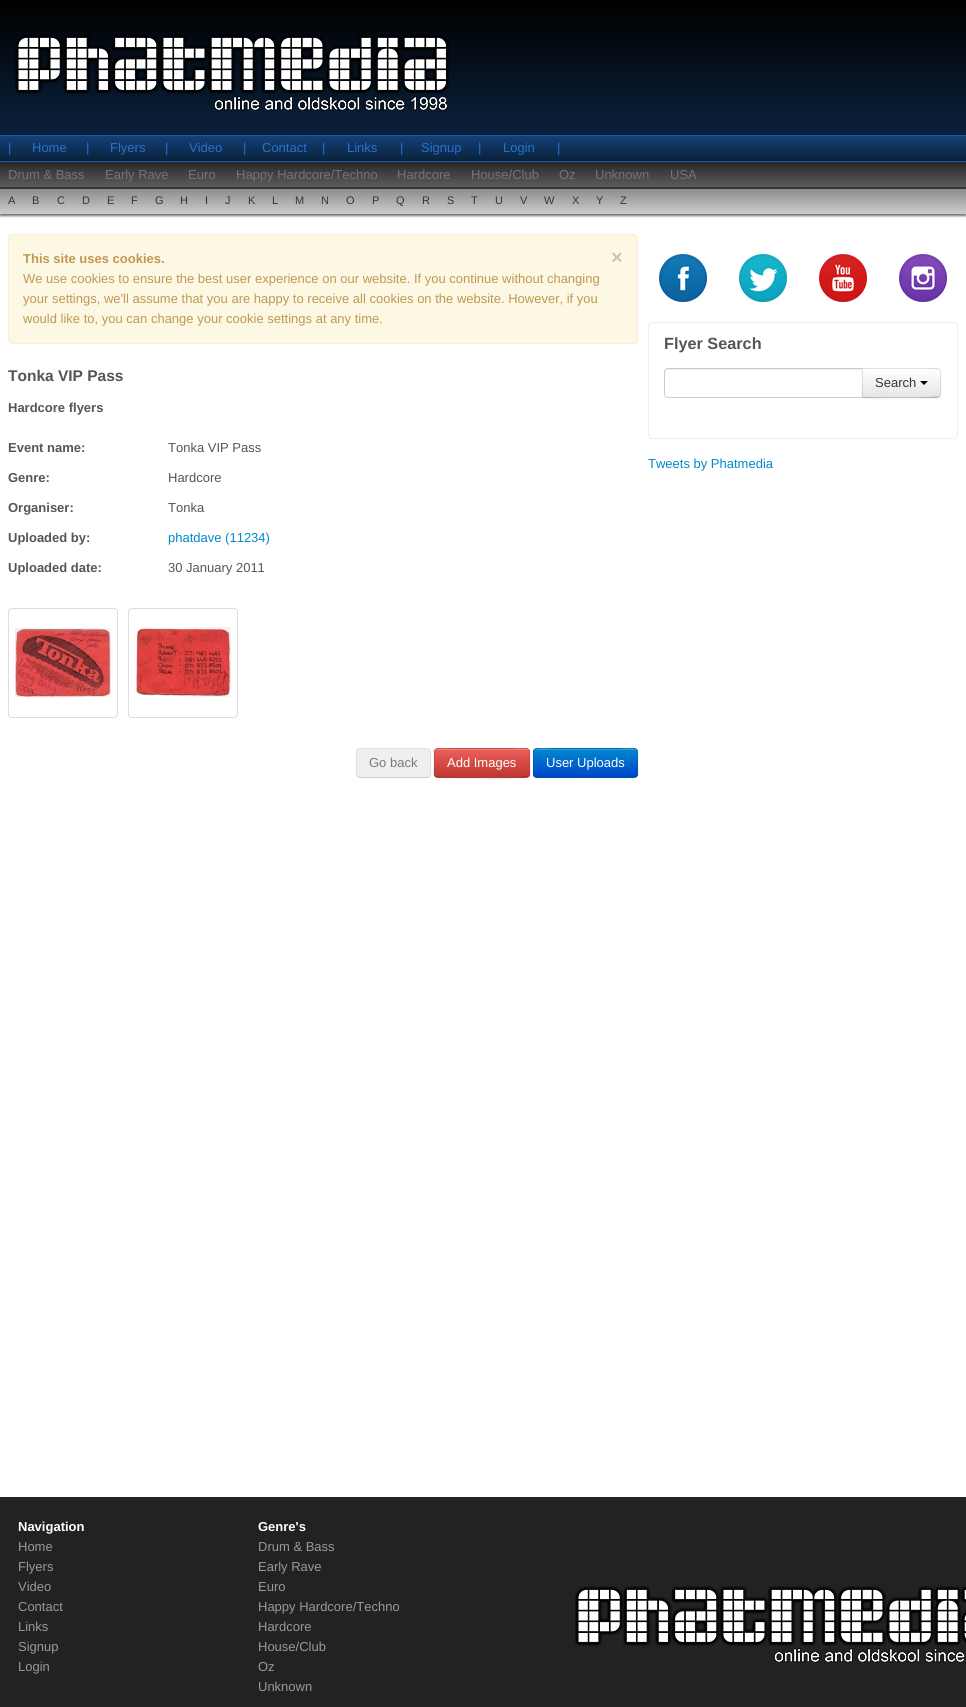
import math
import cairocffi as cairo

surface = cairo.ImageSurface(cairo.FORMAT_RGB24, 966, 1707)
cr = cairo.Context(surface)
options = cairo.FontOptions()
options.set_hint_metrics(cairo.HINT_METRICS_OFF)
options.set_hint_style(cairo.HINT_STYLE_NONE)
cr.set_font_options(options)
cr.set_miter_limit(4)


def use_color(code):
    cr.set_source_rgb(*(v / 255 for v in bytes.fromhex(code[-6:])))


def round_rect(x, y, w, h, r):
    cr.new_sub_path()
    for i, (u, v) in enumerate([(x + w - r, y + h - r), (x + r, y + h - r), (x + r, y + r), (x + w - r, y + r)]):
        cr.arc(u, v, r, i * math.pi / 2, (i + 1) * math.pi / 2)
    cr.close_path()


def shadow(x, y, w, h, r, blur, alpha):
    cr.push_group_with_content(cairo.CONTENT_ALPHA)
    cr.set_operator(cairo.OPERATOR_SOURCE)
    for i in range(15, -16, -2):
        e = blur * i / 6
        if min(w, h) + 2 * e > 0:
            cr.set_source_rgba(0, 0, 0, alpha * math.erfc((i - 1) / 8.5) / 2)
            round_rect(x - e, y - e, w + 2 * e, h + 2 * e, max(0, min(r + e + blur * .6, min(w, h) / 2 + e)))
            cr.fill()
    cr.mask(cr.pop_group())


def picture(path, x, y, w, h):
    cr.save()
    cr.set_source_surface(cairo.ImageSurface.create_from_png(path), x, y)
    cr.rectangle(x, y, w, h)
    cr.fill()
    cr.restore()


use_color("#ffffff")
cr.paint()
gradient = cairo.LinearGradient(483, 0, 483, 135)
gradient.add_color_stop_rgba(0, 0, 0, 0, 1)
gradient.add_color_stop_rgba(1, 0.039, 0.129, 0.235, 1)
cr.set_source(gradient)
cr.rectangle(0, 0, 966, 135)
cr.fill()
picture("img1.png", 15, 35, 435, 76)
gradient = cairo.LinearGradient(483, 136, 483, 161)
gradient.add_color_stop_rgba(0, 0.075, 0.259, 0.463, 1)
gradient.add_color_stop_rgba(1, 0.039, 0.129, 0.235, 1)
cr.set_source(gradient)
cr.rectangle(0, 136, 966, 25)
cr.fill()
use_color("#1e5aa1")
cr.rectangle(0, 135, 966, 1)
cr.fill()
cr.rectangle(0, 161, 966, 1)
cr.fill()
cr.select_font_face("Liberation Sans")
cr.set_font_size(13)
use_color("#2672cc")
cr.move_to(8, 152)
cr.show_text("|")
cr.move_to(32, 152)
cr.show_text("Home")
cr.move_to(86, 152)
cr.show_text("|")
cr.move_to(110, 152)
cr.show_text("Flyers")
cr.move_to(165, 152)
cr.show_text("|")
cr.move_to(189, 152)
cr.show_text("Video")
cr.move_to(243, 152)
cr.show_text("|")
cr.move_to(262, 152)
cr.show_text("Contact")
cr.move_to(322, 152)
cr.show_text("|")
cr.move_to(347, 152)
cr.show_text("Links")
cr.move_to(400, 152)
cr.show_text("|")
cr.move_to(421, 152)
cr.show_text("Signup")
cr.move_to(478, 152)
cr.show_text("|")
cr.move_to(503, 152)
cr.show_text("Login")
cr.move_to(557, 152)
cr.show_text("|")
gradient = cairo.LinearGradient(483, 162, 483, 187)
gradient.add_color_stop_rgba(0, 0.157, 0.157, 0.157, 1)
gradient.add_color_stop_rgba(1, 0.361, 0.361, 0.361, 1)
cr.set_source(gradient)
cr.rectangle(0, 162, 966, 25)
cr.fill()
use_color("#333333")
cr.rectangle(0, 187, 966, 2)
cr.fill()
use_color("#747474")
cr.move_to(8, 179)
cr.show_text("Drum & Bass")
cr.move_to(105, 179)
cr.show_text("Early Rave")
cr.move_to(188, 179)
cr.show_text("Euro")
cr.move_to(236, 179)
cr.show_text("Happy Hardcore/Techno")
cr.move_to(397, 179)
cr.show_text("Hardcore")
cr.move_to(471, 179)
cr.show_text("House/Club")
cr.move_to(559, 179)
cr.show_text("Oz")
cr.move_to(595, 179)
cr.show_text("Unknown")
cr.move_to(670, 179)
cr.show_text("USA")
use_color("#737373")
shadow(0, 191, 966, 25, 0, 1, 1)
gradient = cairo.LinearGradient(483, 189, 483, 214)
gradient.add_color_stop_rgba(0, 0.553, 0.553, 0.553, 1)
gradient.add_color_stop_rgba(1, 0.8, 0.8, 0.8, 1)
cr.set_source(gradient)
cr.rectangle(0, 189, 966, 25)
cr.fill()
cr.set_font_size(11)
use_color("#353535")
cr.move_to(8, 204)
cr.show_text("A")
cr.move_to(32, 204)
cr.show_text("B")
cr.move_to(57, 204)
cr.show_text("C")
cr.move_to(82, 204)
cr.show_text("D")
cr.move_to(107, 204)
cr.show_text("E")
cr.move_to(131, 204)
cr.show_text("F")
cr.move_to(155, 204)
cr.show_text("G")
cr.move_to(180, 204)
cr.show_text("H")
cr.move_to(205, 204)
cr.show_text("I")
cr.move_to(225, 204)
cr.show_text("J")
cr.move_to(248, 204)
cr.show_text("K")
cr.move_to(272, 204)
cr.show_text("L")
cr.move_to(295, 204)
cr.show_text("M")
cr.move_to(321, 204)
cr.show_text("N")
cr.move_to(346, 204)
cr.show_text("O")
cr.move_to(372, 204)
cr.show_text("P")
cr.move_to(396, 204)
cr.show_text("Q")
cr.move_to(422, 204)
cr.show_text("R")
cr.move_to(447, 204)
cr.show_text("S")
cr.move_to(471, 204)
cr.show_text("T")
cr.move_to(495, 204)
cr.show_text("U")
cr.move_to(520, 204)
cr.show_text("V")
cr.move_to(544, 204)
cr.show_text("W")
cr.move_to(572, 204)
cr.show_text("X")
cr.move_to(596, 204)
cr.show_text("Y")
cr.move_to(620, 204)
cr.show_text("Z")
use_color("#fcf8e3")
round_rect(8.5, 234.5, 629, 109, 3.5)
cr.fill_preserve()
use_color("#fbeed5")
cr.set_line_width(1)
cr.stroke()
cr.select_font_face("Liberation Sans", cairo.FONT_SLANT_NORMAL, cairo.FONT_WEIGHT_BOLD)
cr.set_font_size(13)
use_color("#c09853")
cr.move_to(23, 263)
cr.show_text("This site uses cookies.")
cr.set_font_size(20)
use_color("#cac6b6")
cr.move_to(611, 264)
cr.show_text("×")
cr.select_font_face("Liberation Sans")
cr.set_font_size(13)
use_color("#c09853")
cr.move_to(23, 283)
cr.show_text("We use cookies to ensure the best user experience on our website. If you continue without changing")
cr.move_to(23, 303)
cr.show_text("your settings, we'll assume that you are happy to receive all cookies on the website. However, if you")
cr.move_to(23, 323)
cr.show_text("would like to, you can change your cookie settings at any time.")
cr.select_font_face("Liberation Sans", cairo.FONT_SLANT_NORMAL, cairo.FONT_WEIGHT_BOLD)
cr.set_font_size(15.5)
use_color("#555555")
cr.move_to(8, 381)
cr.show_text("Tonka VIP Pass")
cr.set_font_size(13)
cr.move_to(8, 412)
cr.show_text("Hardcore flyers")
cr.move_to(8, 452)
cr.show_text("Event name:")
cr.select_font_face("Liberation Sans")
cr.move_to(168, 452)
cr.show_text("Tonka VIP Pass")
cr.select_font_face("Liberation Sans", cairo.FONT_SLANT_NORMAL, cairo.FONT_WEIGHT_BOLD)
cr.move_to(8, 482)
cr.show_text("Genre:")
cr.select_font_face("Liberation Sans")
cr.move_to(168, 482)
cr.show_text("Hardcore")
cr.select_font_face("Liberation Sans", cairo.FONT_SLANT_NORMAL, cairo.FONT_WEIGHT_BOLD)
cr.move_to(8, 512)
cr.show_text("Organiser:")
cr.select_font_face("Liberation Sans")
cr.move_to(168, 512)
cr.show_text("Tonka")
cr.select_font_face("Liberation Sans", cairo.FONT_SLANT_NORMAL, cairo.FONT_WEIGHT_BOLD)
cr.move_to(8, 542)
cr.show_text("Uploaded by:")
cr.select_font_face("Liberation Sans")
use_color("#0088cc")
cr.move_to(168, 542)
cr.show_text("phatdave (11234)")
cr.select_font_face("Liberation Sans", cairo.FONT_SLANT_NORMAL, cairo.FONT_WEIGHT_BOLD)
use_color("#555555")
cr.move_to(8, 572)
cr.show_text("Uploaded date:")
cr.select_font_face("Liberation Sans")
cr.move_to(168, 572)
cr.show_text("30 January 2011")
round_rect(8.5, 608.5, 109, 109, 3.5)
use_color("#dddddd")
cr.stroke()
picture("img2.png", 14, 628, 99, 71)
round_rect(128.5, 608.5, 109, 109, 3.5)
cr.stroke()
picture("img3.png", 135, 627, 98, 70)
use_color("#000000")
shadow(434, 749, 96, 30, 4, 1, 0.05)
use_color("#efefef")
round_rect(356, 748, 75, 30, 4)
cr.fill()
cr.new_path()
cr.move_to(429.5, 776.5)
cr.line_to(427.5, 777.5)
cr.line_to(359.5, 777.5)
cr.line_to(357.5, 776.5)
use_color("#cecece")
cr.stroke()
cr.new_path()
cr.move_to(357.5, 776.5)
cr.curve_to(355.5, 774.5, 356.5, 766, 356.5, 763)
cr.curve_to(356.5, 746.5, 354, 748.5, 371, 748.5)
cr.line_to(416, 748.5)
cr.curve_to(433, 748.5, 430.5, 746.5, 430.5, 763)
cr.curve_to(430.5, 766, 431.5, 774.5, 429.5, 776.5)
cr.set_source_rgba(0.349, 0.349, 0.349, 0.1)
cr.stroke()
use_color("#7a7a7a")
cr.move_to(369, 767)
cr.show_text("Go back")
use_color("#da4f49")
round_rect(434, 748, 96, 30, 4)
cr.fill()
cr.save()
round_rect(434, 748, 96, 30, 4)
cr.clip()
gradient = cairo.LinearGradient(482, 749, 482, 777)
gradient.add_color_stop_rgba(0, 0.933, 0.373, 0.357, 1)
gradient.add_color_stop_rgba(1, 0.741, 0.212, 0.184, 1)
cr.set_source(gradient)
cr.rectangle(434, 749, 96, 28)
cr.fill()
cr.restore()
cr.set_source_rgba(1, 1, 1, 0.2)
cr.new_path()
cr.move_to(438, 750)
cr.line_to(526, 750)
cr.curve_to(528, 750, 529, 751, 529, 753)
cr.curve_to(529, 745, 515, 749, 511, 749)
cr.line_to(453, 749)
cr.curve_to(449, 749, 435, 745, 435, 753)
cr.curve_to(435, 751, 436, 750, 438, 750)
cr.close_path()
cr.fill()
cr.new_path()
cr.move_to(528.5, 776.5)
cr.line_to(528, 776.5)
cr.curve_to(526, 778.5, 461, 777.5, 452.5, 777.5)
cr.line_to(438, 777.5)
cr.line_to(435.5, 776.5)
cr.set_source_rgba(0, 0, 0, 0.25)
cr.stroke()
cr.new_path()
cr.move_to(435.5, 776.5)
cr.curve_to(433, 774, 434.5, 769.5, 434.5, 766.5)
cr.curve_to(434.5, 745.5, 431, 748.5, 452.5, 748.5)
cr.line_to(511.5, 748.5)
cr.curve_to(533, 748.5, 529.5, 745.5, 529.5, 766.5)
cr.curve_to(529.5, 769.5, 531, 774, 528.5, 776.5)
cr.set_source_rgba(0, 0, 0, 0.1)
cr.stroke()
use_color("#ffffff")
cr.move_to(447, 767)
cr.show_text("Add Images")
use_color("#000000")
shadow(533, 749, 105, 30, 4, 1, 0.05)
use_color("#006dcc")
round_rect(533, 748, 105, 30, 4)
cr.fill()
cr.save()
round_rect(533, 748, 105, 30, 4)
cr.clip()
gradient = cairo.LinearGradient(586, 749, 586, 777)
gradient.add_color_stop_rgba(0, 0, 0.533, 0.8, 1)
gradient.add_color_stop_rgba(1, 0, 0.267, 0.8, 1)
cr.set_source(gradient)
cr.rectangle(533, 749, 105, 28)
cr.fill()
cr.restore()
cr.set_source_rgba(1, 1, 1, 0.2)
cr.new_path()
cr.move_to(537, 750)
cr.line_to(634, 750)
cr.curve_to(636, 750, 637, 751, 637, 753)
cr.curve_to(637, 745, 621, 749, 618, 749)
cr.line_to(553, 749)
cr.curve_to(550, 749, 534, 745, 534, 753)
cr.curve_to(534, 751, 535, 750, 537, 750)
cr.close_path()
cr.fill()
cr.new_path()
cr.move_to(636.5, 776.5)
cr.line_to(634.5, 777.5)
cr.line_to(553, 777.5)
cr.line_to(537, 777.5)
cr.line_to(534.5, 776.5)
cr.set_source_rgba(0, 0, 0, 0.25)
cr.stroke()
cr.new_path()
cr.move_to(534.5, 776.5)
cr.curve_to(532, 774, 533.5, 769.5, 533.5, 766.5)
cr.curve_to(533.5, 745, 530, 748.5, 553, 748.5)
cr.line_to(618, 748.5)
cr.curve_to(641, 748.5, 637.5, 745, 637.5, 766.5)
cr.curve_to(637.5, 769.5, 639, 774, 636.5, 776.5)
cr.set_source_rgba(0, 0, 0, 0.1)
cr.stroke()
use_color("#ffffff")
cr.move_to(546, 767)
cr.show_text("User Uploads")
picture("img4.png", 659, 254, 48, 48)
picture("img5.png", 739, 254, 48, 48)
picture("img6.png", 819, 254, 48, 48)
picture("img7.png", 899, 254, 48, 48)
round_rect(648.5, 322.5, 309, 116, 3.5)
use_color("#eeeeee")
cr.stroke()
cr.select_font_face("Liberation Sans", cairo.FONT_SLANT_NORMAL, cairo.FONT_WEIGHT_BOLD)
cr.set_font_size(16.25)
use_color("#555555")
cr.move_to(664, 349)
cr.show_text("Flyer Search")
use_color("#ececec")
cr.new_path()
cr.move_to(668, 370)
cr.line_to(862, 370)
cr.line_to(862, 369)
cr.line_to(668, 369)
cr.curve_to(666, 369, 665, 371, 665, 373)
cr.curve_to(665, 371, 666, 370, 668, 370)
cr.close_path()
cr.fill()
cr.new_path()
cr.move_to(668, 368.5)
cr.line_to(862.5, 368.5)
cr.line_to(862.5, 397.5)
cr.line_to(668, 397.5)
cr.curve_to(666, 397.5, 664.5, 396, 664.5, 394)
cr.line_to(664.5, 372)
cr.curve_to(664.5, 370, 666, 368.5, 668, 368.5)
cr.close_path()
use_color("#cccccc")
cr.stroke()
use_color("#000000")
shadow(862, 369, 79, 30, 4, 1, 0.05)
use_color("#f5f5f5")
cr.new_path()
cr.move_to(862, 368)
cr.line_to(937, 368)
cr.curve_to(939, 368, 941, 370, 941, 372)
cr.line_to(941, 394)
cr.curve_to(941, 396, 939, 398, 937, 398)
cr.line_to(862, 398)
cr.close_path()
cr.fill()
cr.save()
cr.new_path()
cr.move_to(862, 368)
cr.line_to(937, 368)
cr.curve_to(939, 368, 941, 370, 941, 372)
cr.line_to(941, 394)
cr.curve_to(941, 396, 939, 398, 937, 398)
cr.line_to(862, 398)
cr.close_path()
cr.clip()
gradient = cairo.LinearGradient(902, 369, 902, 397)
gradient.add_color_stop_rgba(0, 1, 1, 1, 1)
gradient.add_color_stop_rgba(1, 0.902, 0.902, 0.902, 1)
cr.set_source(gradient)
cr.rectangle(862, 369, 79, 28)
cr.fill()
cr.restore()
cr.set_source_rgba(0, 0, 0, 0.1)
cr.new_path()
cr.move_to(862, 368)
cr.line_to(863, 369)
cr.curve_to(871, 369, 938, 368, 939, 370)
cr.line_to(940, 369)
cr.line_to(937, 368)
cr.close_path()
cr.fill()
cr.new_path()
cr.move_to(941, 394)
cr.line_to(941, 372)
cr.curve_to(941, 371, 940.5, 370, 940, 369)
cr.line_to(939, 370)
cr.curve_to(940, 370, 940, 371, 940, 372)
cr.line_to(940, 394)
cr.curve_to(940, 395, 940, 396, 939, 396)
cr.line_to(940, 397)
cr.curve_to(940.5, 396, 941, 395, 941, 394)
cr.close_path()
cr.fill()
use_color("#b3b3b3")
cr.new_path()
cr.move_to(937, 398)
cr.line_to(940, 397)
cr.line_to(939, 396)
cr.curve_to(938, 398, 871, 397, 863, 397)
cr.line_to(862, 398)
cr.close_path()
cr.fill()
cr.set_source_rgba(0, 0, 0, 0.1)
cr.new_path()
cr.move_to(862, 368)
cr.line_to(862, 398)
cr.line_to(863, 397)
cr.line_to(863, 369)
cr.close_path()
cr.fill()
cr.select_font_face("Liberation Sans")
cr.set_font_size(13)
use_color("#353535")
cr.move_to(875, 387)
cr.show_text("Search")
use_color("#000000")
cr.new_path()
cr.move_to(920, 381)
cr.line_to(928, 381)
cr.line_to(924, 385)
cr.close_path()
cr.fill()
use_color("#0088cc")
cr.move_to(648, 468)
cr.show_text("Tweets by Phatmedia")
use_color("#222222")
cr.rectangle(0, 1497, 966, 210)
cr.fill()
cr.select_font_face("Liberation Sans", cairo.FONT_SLANT_NORMAL, cairo.FONT_WEIGHT_BOLD)
use_color("#ffffff")
cr.move_to(18, 1531)
cr.show_text("Navigation")
cr.select_font_face("Liberation Sans")
use_color("#999999")
cr.move_to(18, 1551)
cr.show_text("Home")
cr.move_to(18, 1571)
cr.show_text("Flyers")
cr.move_to(18, 1591)
cr.show_text("Video")
cr.move_to(18, 1611)
cr.show_text("Contact")
cr.move_to(18, 1631)
cr.show_text("Links")
cr.move_to(18, 1651)
cr.show_text("Signup")
cr.move_to(18, 1671)
cr.show_text("Login")
cr.select_font_face("Liberation Sans", cairo.FONT_SLANT_NORMAL, cairo.FONT_WEIGHT_BOLD)
use_color("#ffffff")
cr.move_to(258, 1531)
cr.show_text("Genre's")
cr.select_font_face("Liberation Sans")
use_color("#999999")
cr.move_to(258, 1551)
cr.show_text("Drum & Bass")
cr.move_to(258, 1571)
cr.show_text("Early Rave")
cr.move_to(258, 1591)
cr.show_text("Euro")
cr.move_to(258, 1611)
cr.show_text("Happy Hardcore/Techno")
cr.move_to(258, 1631)
cr.show_text("Hardcore")
cr.move_to(258, 1651)
cr.show_text("House/Club")
cr.move_to(258, 1671)
cr.show_text("Oz")
cr.move_to(258, 1691)
cr.show_text("Unknown")
picture("img8.png", 575, 1586, 391, 77)
surface.write_to_png("result.png")
